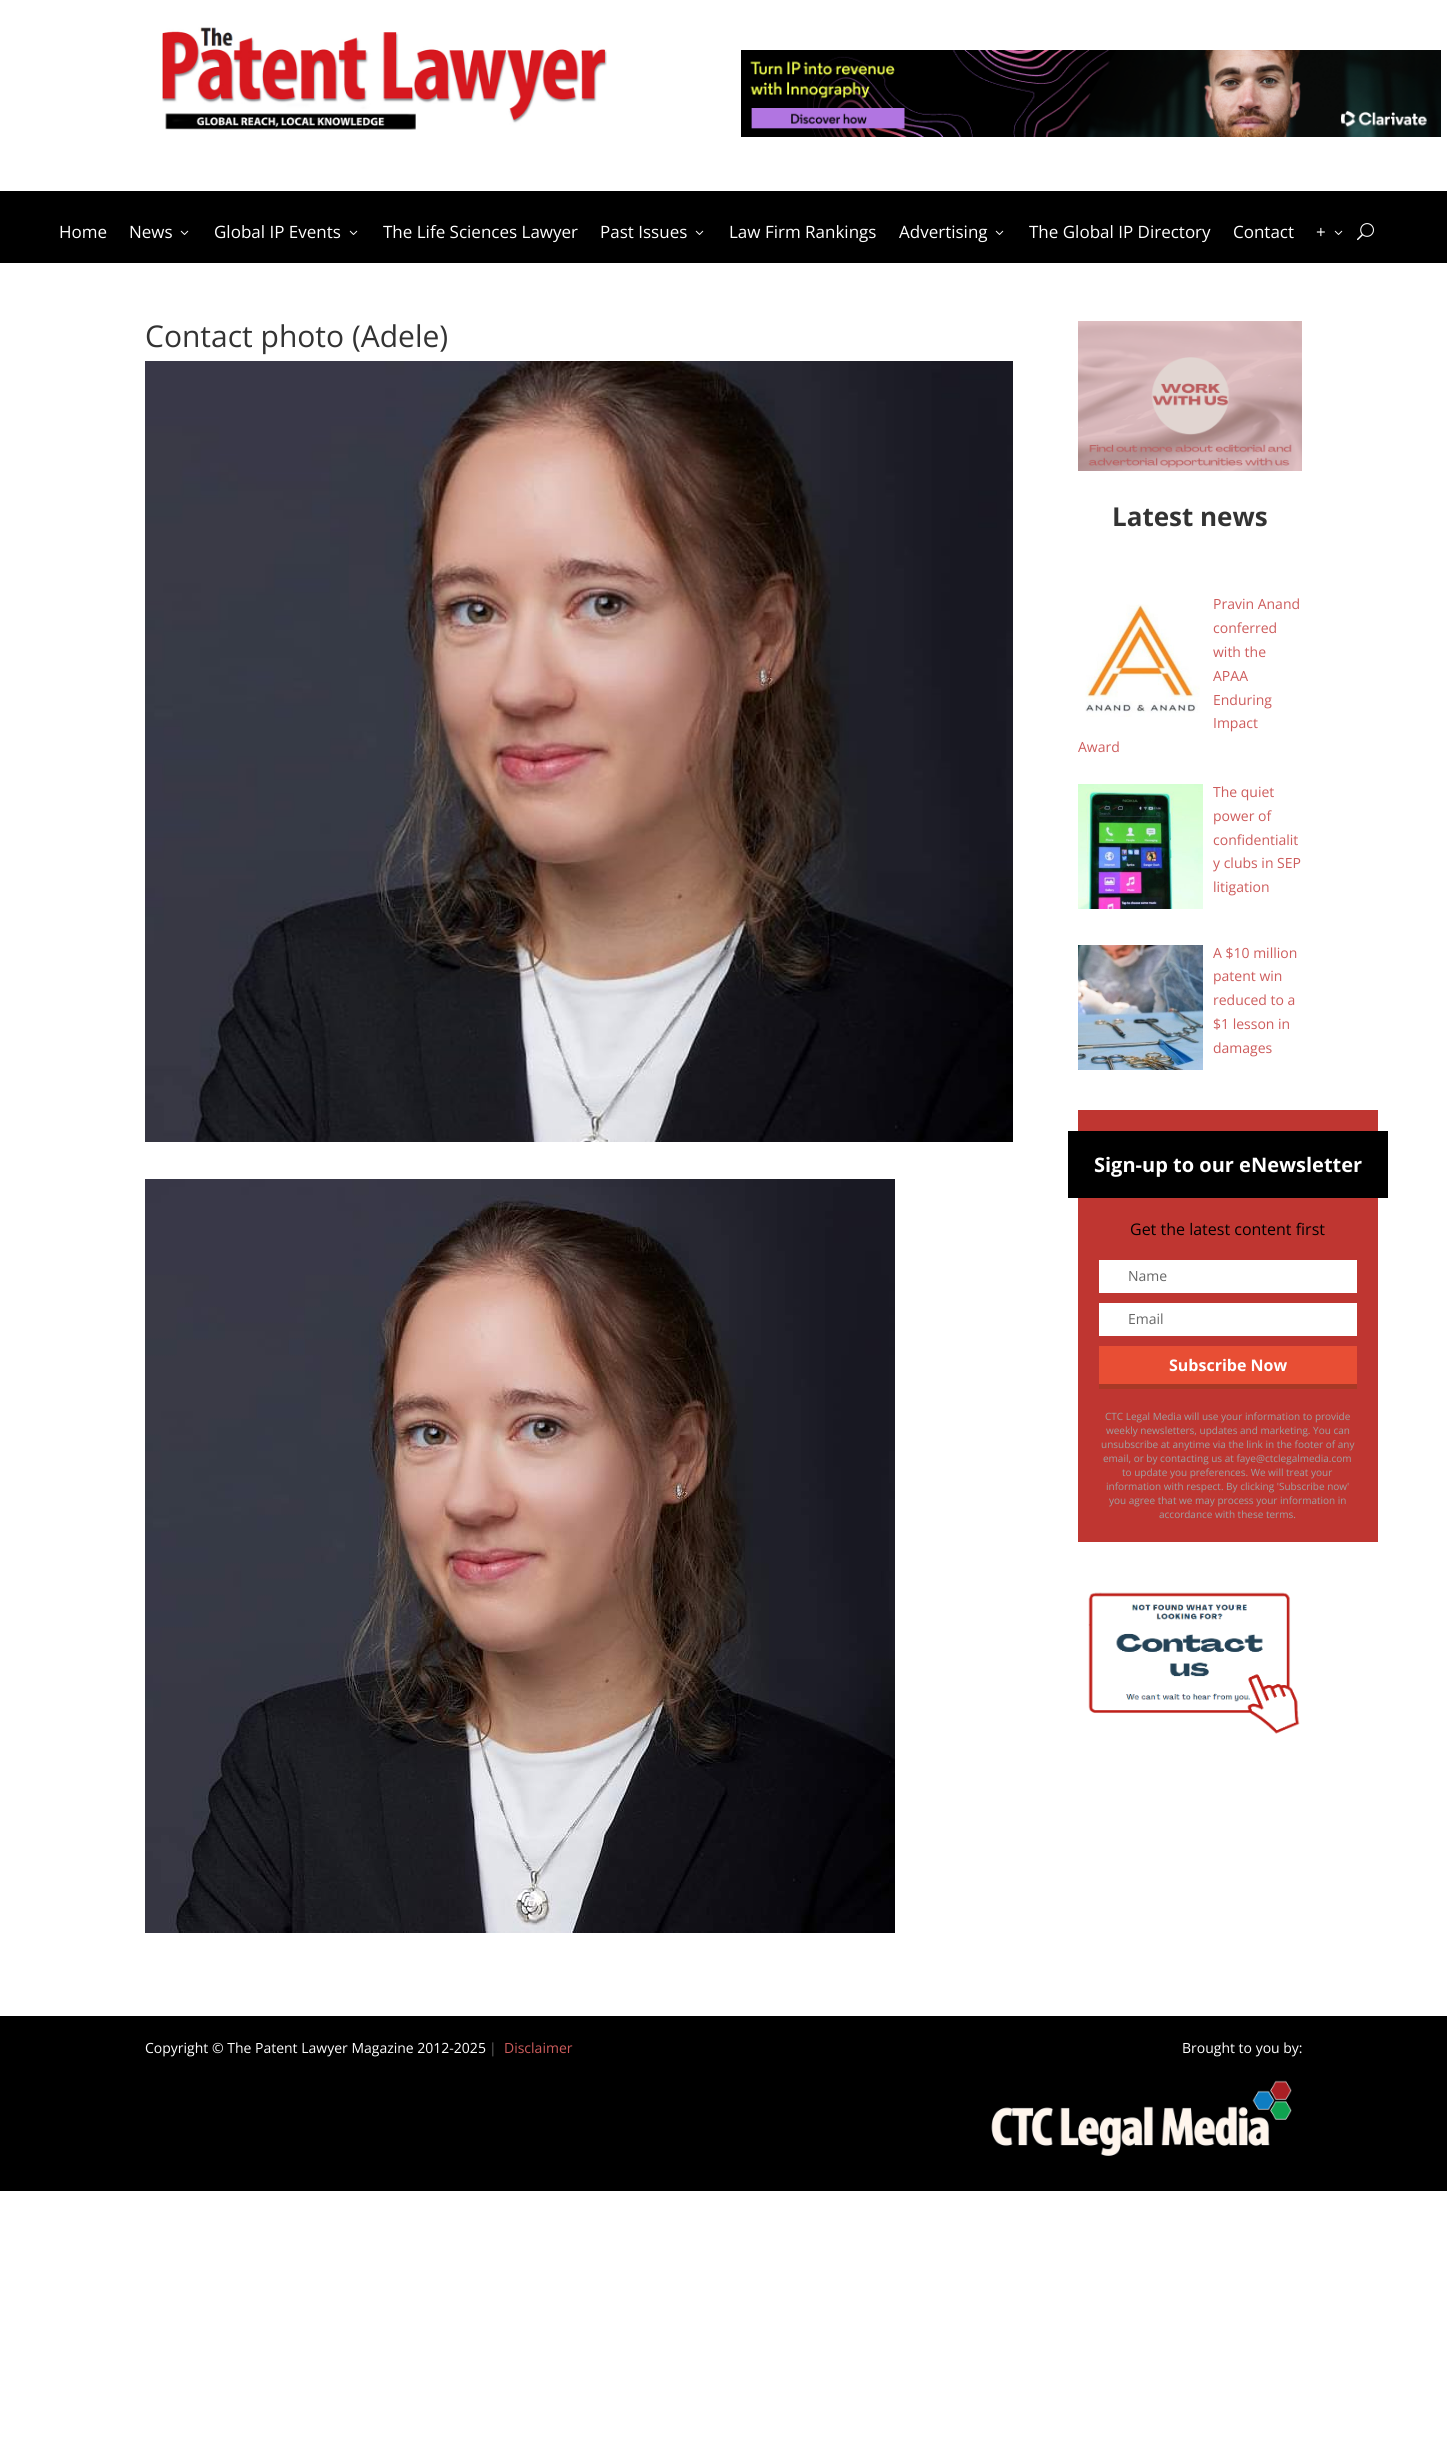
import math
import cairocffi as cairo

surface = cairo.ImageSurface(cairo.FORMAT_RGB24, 1447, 2457)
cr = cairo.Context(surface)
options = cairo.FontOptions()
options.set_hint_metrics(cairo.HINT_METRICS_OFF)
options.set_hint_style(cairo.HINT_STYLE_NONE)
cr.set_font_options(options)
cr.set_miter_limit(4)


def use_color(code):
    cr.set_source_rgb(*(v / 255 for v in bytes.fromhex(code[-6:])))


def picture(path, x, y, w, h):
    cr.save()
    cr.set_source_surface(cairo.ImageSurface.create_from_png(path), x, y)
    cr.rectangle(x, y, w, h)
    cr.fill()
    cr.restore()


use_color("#ffffff")
cr.paint()
picture("img1.png", 162, 27, 445, 103)
picture("img2.png", 741, 50, 700, 87)
use_color("#000000")
cr.rectangle(0, 191, 1447, 72)
cr.fill()
cr.select_font_face("Open Sans")
cr.set_font_size(17)
use_color("#ffffff")
cr.move_to(59, 238)
cr.show_text("Home")
cr.move_to(129, 238)
cr.show_text("News")
picture("img3.png", 180, 230, 9, 5)
cr.move_to(214, 238)
cr.show_text("Global IP Events")
picture("img3.png", 349, 230, 9, 5)
cr.move_to(383, 238)
cr.show_text("The Life Sciences Lawyer")
cr.move_to(600, 238)
cr.show_text("Past Issues")
picture("img3.png", 695, 230, 9, 5)
cr.move_to(729, 238)
cr.show_text("Law Firm Rankings")
cr.move_to(899, 238)
cr.show_text("Advertising")
picture("img3.png", 995, 230, 9, 5)
cr.move_to(1029, 238)
cr.show_text("The Global IP Directory")
cr.move_to(1233, 238)
cr.show_text("Contact")
cr.move_to(1316, 238)
cr.show_text("+")
picture("img3.png", 1334, 230, 9, 5)
picture("img4.png", 1357, 223, 17, 18)
cr.set_font_size(30)
use_color("#333333")
cr.move_to(145, 347)
cr.show_text("Contact photo (Adele)")
picture("img5.png", 145, 361, 868, 781)
picture("img6.png", 145, 1179, 750, 754)
picture("img7.png", 1078, 321, 224, 150)
cr.select_font_face("Open Sans", cairo.FONT_SLANT_NORMAL, cairo.FONT_WEIGHT_BOLD)
cr.set_font_size(26)
cr.move_to(1112, 526)
cr.show_text("Latest news")
picture("img8.png", 1085, 604, 115, 113)
cr.select_font_face("Open Sans")
cr.set_font_size(14)
use_color("#cd5c5c")
cr.move_to(1213, 609)
cr.show_text("Pravin Anand")
cr.move_to(1213, 633)
cr.show_text("conferred")
cr.move_to(1213, 657)
cr.show_text("with the")
cr.move_to(1213, 681)
cr.show_text("APAA")
cr.move_to(1213, 705)
cr.show_text("Enduring")
cr.move_to(1213, 728)
cr.show_text("Impact")
cr.move_to(1078, 752)
cr.show_text("Award")
picture("img9.png", 1078, 784, 125, 125)
cr.move_to(1213, 797)
cr.show_text("The quiet")
cr.move_to(1213, 821)
cr.show_text("power of")
cr.move_to(1213, 845)
cr.show_text("confidentialit")
cr.move_to(1213, 868)
cr.show_text("y clubs in SEP")
cr.move_to(1213, 892)
cr.show_text("litigation")
picture("img10.png", 1078, 945, 125, 125)
cr.move_to(1213, 958)
cr.show_text("A $10 million")
cr.move_to(1213, 981)
cr.show_text("patent win")
cr.move_to(1213, 1005)
cr.show_text("reduced to a")
cr.move_to(1213, 1029)
cr.show_text("$1 lesson in")
cr.move_to(1213, 1053)
cr.show_text("damages")
use_color("#bf3631")
cr.rectangle(1078, 1110, 300, 432)
cr.fill()
use_color("#000000")
cr.rectangle(1068, 1131, 320, 67)
cr.fill()
cr.select_font_face("Open Sans", cairo.FONT_SLANT_NORMAL, cairo.FONT_WEIGHT_BOLD)
cr.set_font_size(20)
use_color("#ffffff")
cr.move_to(1094, 1172)
cr.show_text("Sign-up to our eNewsletter")
cr.select_font_face("Open Sans")
cr.set_font_size(16)
use_color("#000000")
cr.move_to(1130, 1235)
cr.show_text("Get the latest content first")
use_color("#ffffff")
cr.rectangle(1099, 1260, 258, 33)
cr.fill()
cr.set_font_size(14)
use_color("#666666")
cr.move_to(1128, 1281)
cr.show_text("Name")
use_color("#ffffff")
cr.rectangle(1099, 1303, 258, 33)
cr.fill()
use_color("#666666")
cr.move_to(1128, 1324)
cr.show_text("Email")
use_color("#a83926")
cr.rectangle(1099, 1384, 258, 5)
cr.fill()
use_color("#e84e34")
cr.rectangle(1099, 1346, 258, 38)
cr.fill()
cr.select_font_face("Open Sans", cairo.FONT_SLANT_NORMAL, cairo.FONT_WEIGHT_BOLD)
cr.set_font_size(16)
use_color("#ffffff")
cr.move_to(1169, 1371)
cr.show_text("Subscribe Now")
cr.select_font_face("Open Sans")
cr.set_font_size(10)
use_color("#a1a1a1")
cr.move_to(1105, 1420)
cr.show_text("CTC Legal Media will use your information to provide")
cr.move_to(1106, 1434)
cr.show_text("weekly newsletters, updates and marketing. You can")
cr.move_to(1101, 1448)
cr.show_text("unsubscribe at anytime via the link in the footer of any")
cr.move_to(1103, 1462)
cr.show_text("email, or by contacting us at faye@ctclegalmedia.com")
cr.move_to(1122, 1476)
cr.show_text("to update you preferences. We will treat your")
cr.move_to(1106, 1490)
cr.show_text("information with respect. By clicking 'Subscribe now'")
cr.move_to(1109, 1504)
cr.show_text("you agree that we may process your information in")
cr.move_to(1159, 1518)
cr.show_text("accordance with these terms.")
picture("img11.png", 1088, 1592, 212, 142)
use_color("#000000")
cr.rectangle(0, 2016, 1447, 175)
cr.fill()
cr.set_font_size(14)
use_color("#ffffff")
cr.move_to(145, 2053)
cr.show_text("Copyright © The Patent Lawyer Magazine 2012-2025")
use_color("#666666")
cr.move_to(489, 2053)
cr.show_text("|")
use_color("#cd5c5c")
cr.move_to(504, 2053)
cr.show_text("Disclaimer")
use_color("#ffffff")
cr.move_to(1182, 2053)
cr.show_text("Brought to you by:")
picture("img12.png", 991, 2080, 301, 76)
surface.write_to_png("result.png")
